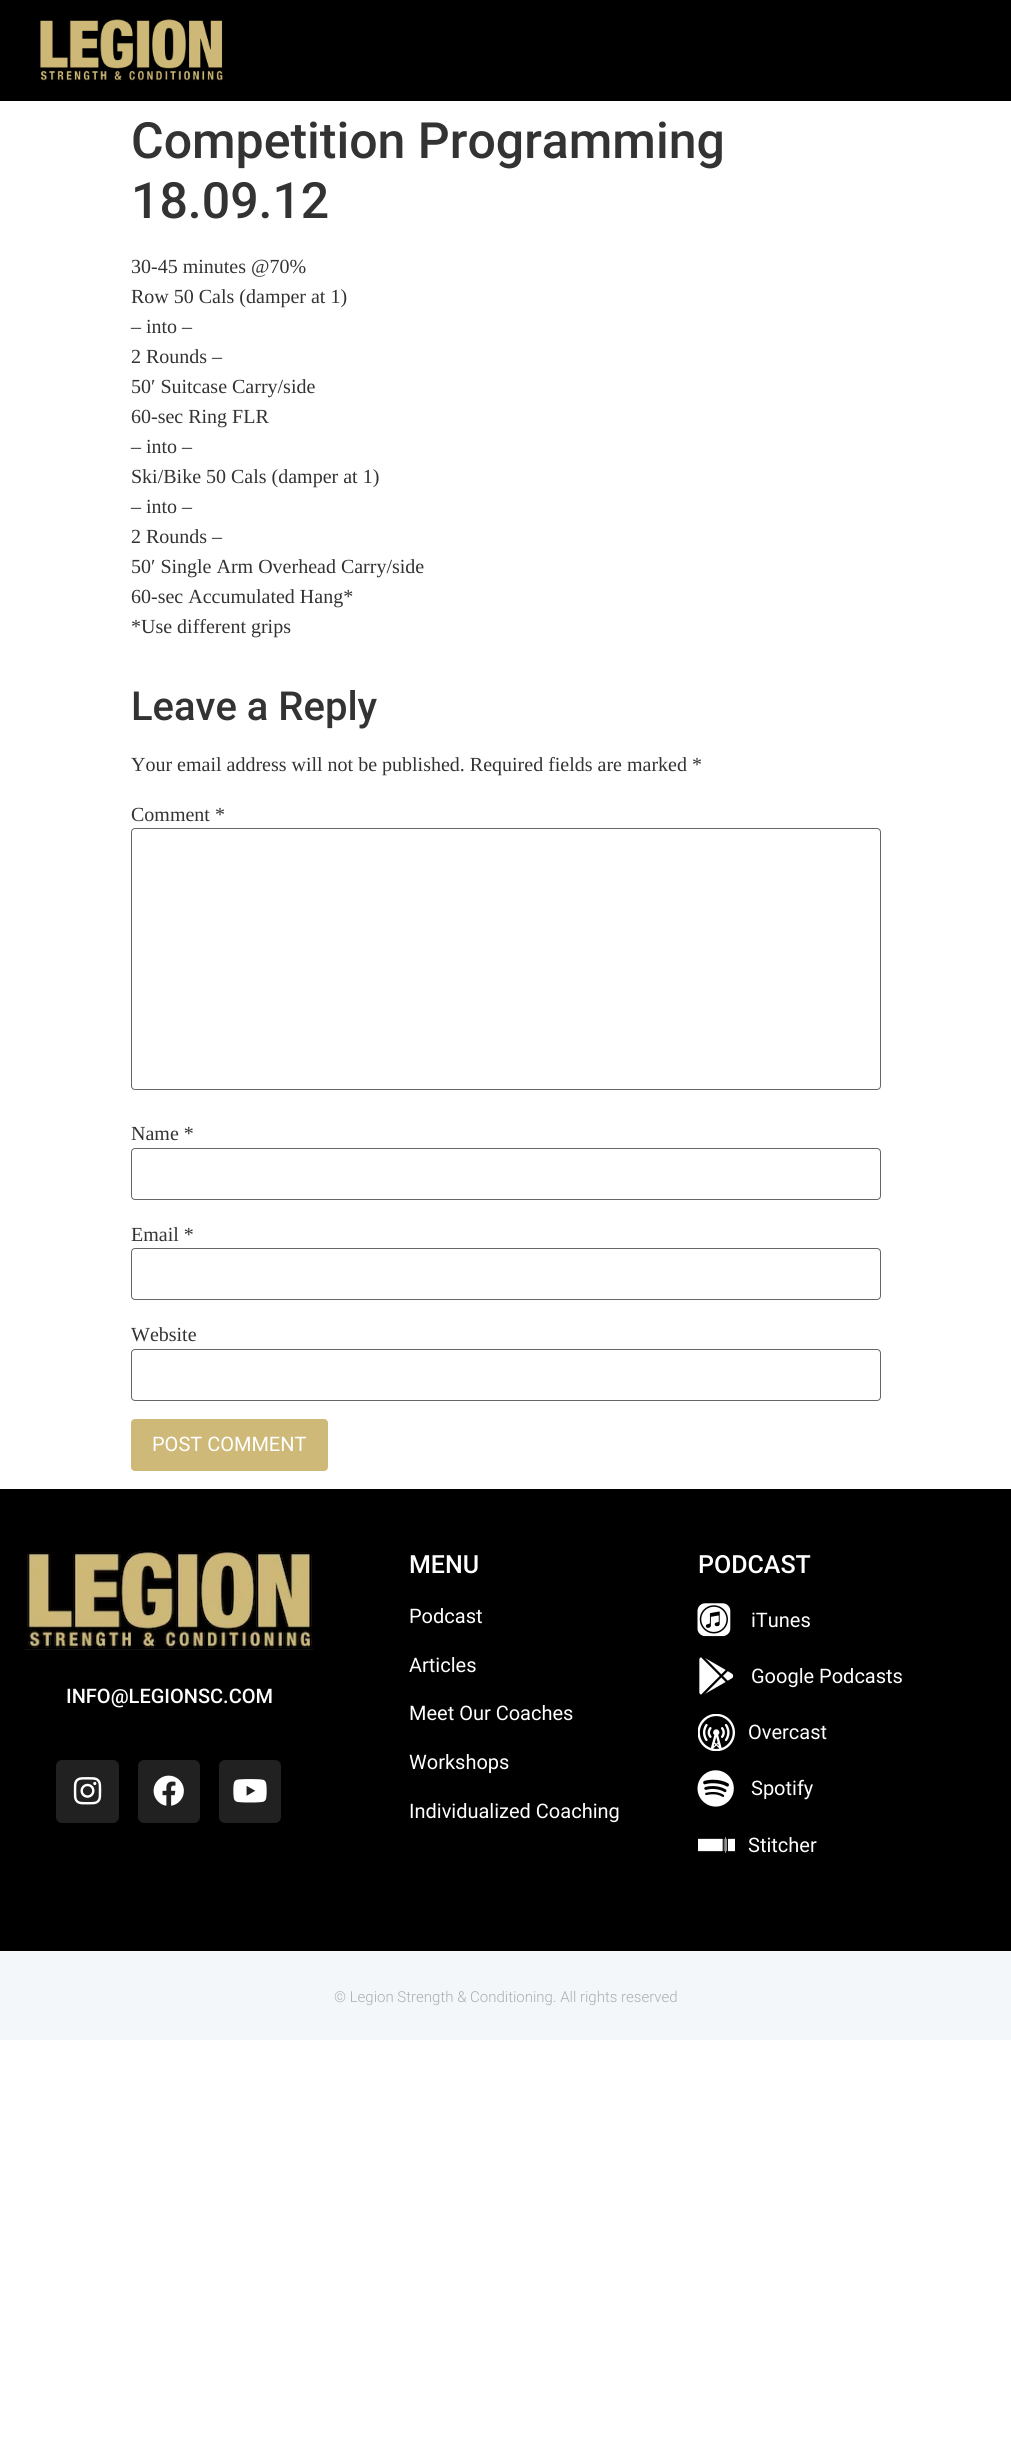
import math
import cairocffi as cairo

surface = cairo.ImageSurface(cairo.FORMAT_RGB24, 1011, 2460)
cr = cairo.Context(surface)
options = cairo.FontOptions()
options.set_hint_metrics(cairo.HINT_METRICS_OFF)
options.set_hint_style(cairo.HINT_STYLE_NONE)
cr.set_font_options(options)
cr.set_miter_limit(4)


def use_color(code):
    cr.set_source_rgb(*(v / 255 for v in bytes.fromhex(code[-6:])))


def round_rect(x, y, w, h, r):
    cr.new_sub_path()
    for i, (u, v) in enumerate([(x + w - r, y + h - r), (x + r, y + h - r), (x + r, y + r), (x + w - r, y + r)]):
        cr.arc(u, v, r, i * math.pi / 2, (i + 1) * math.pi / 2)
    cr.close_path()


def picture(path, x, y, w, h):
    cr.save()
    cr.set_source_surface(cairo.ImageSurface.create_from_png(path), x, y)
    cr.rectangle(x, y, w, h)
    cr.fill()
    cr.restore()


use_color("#ffffff")
cr.paint()
use_color("#000000")
cr.rectangle(0, 0, 1011, 101)
cr.fill()
picture("img1.png", 40, 19, 183, 62)
cr.select_font_face("Roboto Medium")
cr.set_font_size(50)
use_color("#333333")
cr.move_to(131, 158)
cr.show_text("Competition Programming")
cr.move_to(131, 218)
cr.show_text("18.09.12")
cr.select_font_face("Liberation Serif")
cr.set_font_size(20)
cr.move_to(131, 273)
cr.show_text("30-45 minutes @70%")
cr.move_to(131, 303)
cr.show_text("Row 50 Cals (damper at 1)")
cr.move_to(131, 333)
cr.show_text("– into –")
cr.move_to(131, 363)
cr.show_text("2 Rounds –")
cr.move_to(131, 393)
cr.show_text("50′ Suitcase Carry/side")
cr.move_to(131, 423)
cr.show_text("60-sec Ring FLR")
cr.move_to(131, 453)
cr.show_text("– into –")
cr.move_to(131, 483)
cr.show_text("Ski/Bike 50 Cals (damper at 1)")
cr.move_to(131, 513)
cr.show_text("– into –")
cr.move_to(131, 543)
cr.show_text("2 Rounds –")
cr.move_to(131, 573)
cr.show_text("50′ Single Arm Overhead Carry/side")
cr.move_to(131, 603)
cr.show_text("60-sec Accumulated Hang*")
cr.move_to(131, 633)
cr.show_text("*Use different grips")
cr.select_font_face("Roboto Medium")
cr.set_font_size(40)
cr.move_to(131, 720)
cr.show_text("Leave a Reply")
cr.select_font_face("Liberation Serif")
cr.set_font_size(20)
cr.move_to(131, 771)
cr.show_text("Your email address will not be published. Required fields are marked *")
cr.move_to(131, 821)
cr.show_text("Comment *")
round_rect(131.5, 828.5, 749, 261, 3.5)
use_color("#666666")
cr.set_line_width(1)
cr.stroke()
use_color("#333333")
cr.move_to(131, 1140)
cr.show_text("Name *")
round_rect(131.5, 1148.5, 749, 51, 3.5)
use_color("#666666")
cr.stroke()
use_color("#333333")
cr.move_to(131, 1241)
cr.show_text("Email *")
round_rect(131.5, 1248.5, 749, 51, 3.5)
use_color("#666666")
cr.stroke()
use_color("#333333")
cr.move_to(131, 1341)
cr.show_text("Website")
round_rect(131.5, 1349.5, 749, 51, 3.5)
use_color("#666666")
cr.stroke()
use_color("#ceb978")
round_rect(131, 1419, 197, 52, 4)
cr.fill()
cr.select_font_face("Roboto")
use_color("#ffffff")
cr.move_to(152, 1451)
cr.show_text("POST COMMENT")
use_color("#000000")
cr.rectangle(0, 1489, 1011, 462)
cr.fill()
picture("img2.png", 25, 1551, 289, 99)
cr.select_font_face("Roboto Medium")
use_color("#ffffff")
cr.move_to(66, 1703)
cr.show_text("INFO@LEGIONSC.COM")
use_color("#212121")
round_rect(56, 1760, 63, 63, 6)
cr.fill()
picture("img3.png", 73, 1777, 29, 28)
round_rect(138, 1760, 62, 63, 6)
cr.fill()
picture("img4.png", 153, 1775, 31, 31)
round_rect(219, 1760, 62, 63, 6)
cr.fill()
picture("img5.png", 233, 1779, 34, 24)
cr.set_font_size(25)
use_color("#ffffff")
cr.move_to(409, 1573)
cr.show_text("MENU")
cr.select_font_face("Roboto")
cr.set_font_size(20)
cr.move_to(409, 1623)
cr.show_text("Podcast")
cr.move_to(409, 1672)
cr.show_text("Articles")
cr.move_to(409, 1720)
cr.show_text("Meet Our Coaches")
cr.move_to(409, 1769)
cr.show_text("Workshops")
cr.move_to(409, 1818)
cr.show_text("Individualized Coaching")
cr.select_font_face("Roboto Medium")
cr.set_font_size(25)
cr.move_to(698, 1573)
cr.show_text("PODCAST")
picture("img6.png", 697, 1603, 34, 34)
cr.select_font_face("Roboto")
cr.set_font_size(20)
cr.move_to(751, 1627)
cr.show_text("iTunes")
picture("img7.png", 699, 1657, 35, 38)
cr.move_to(751, 1683)
cr.show_text("Google Podcasts")
picture("img8.png", 698, 1714, 37, 37)
cr.move_to(748, 1739)
cr.show_text("Overcast")
picture("img9.png", 697, 1770, 37, 37)
cr.move_to(751, 1795)
cr.show_text("Spotify")
picture("img10.png", 698, 1837, 37, 16)
cr.move_to(748, 1852)
cr.show_text("Stitcher")
use_color("#f3f7f9")
cr.rectangle(0, 1952, 1011, 88)
cr.fill()
use_color("#f5f9fa")
cr.rectangle(0, 1951, 1011, 1)
cr.fill()
cr.select_font_face("Roboto Light")
cr.set_font_size(15)
use_color("#adadad")
cr.move_to(334, 2002)
cr.show_text("© Legion Strength & Conditioning. All rights reserved")
surface.write_to_png("result.png")
